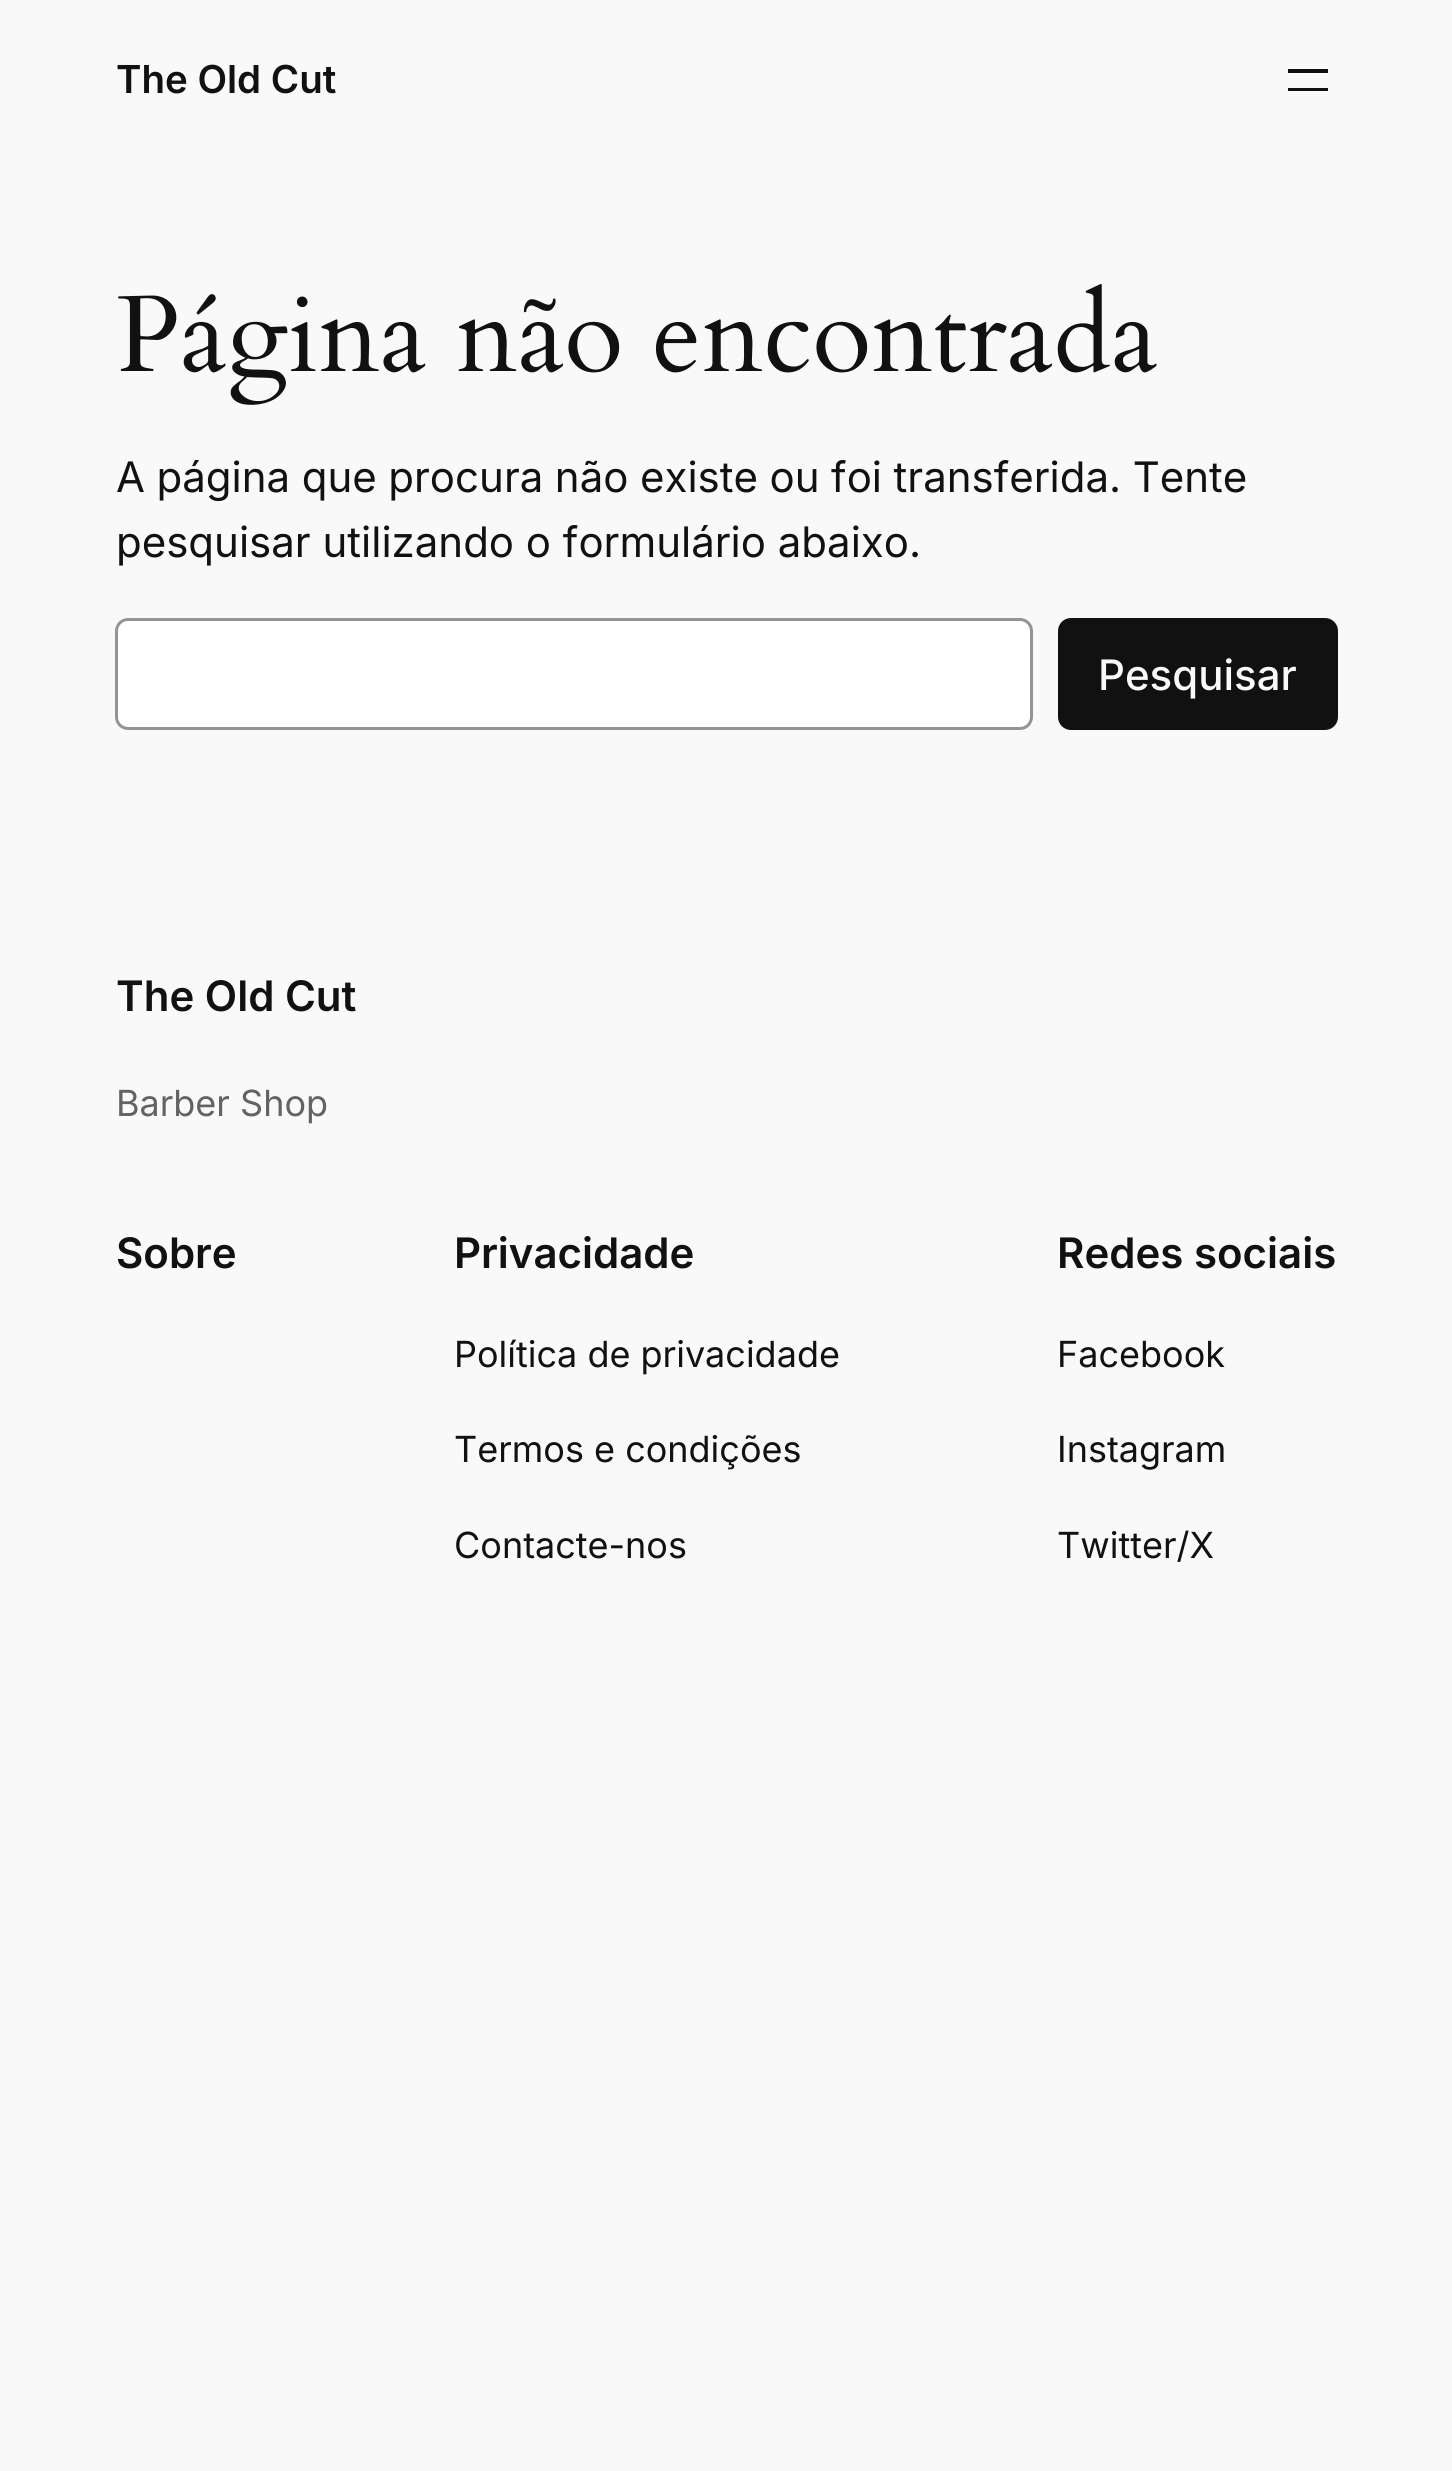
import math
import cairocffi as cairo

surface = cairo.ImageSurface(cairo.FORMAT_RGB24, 1452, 2471)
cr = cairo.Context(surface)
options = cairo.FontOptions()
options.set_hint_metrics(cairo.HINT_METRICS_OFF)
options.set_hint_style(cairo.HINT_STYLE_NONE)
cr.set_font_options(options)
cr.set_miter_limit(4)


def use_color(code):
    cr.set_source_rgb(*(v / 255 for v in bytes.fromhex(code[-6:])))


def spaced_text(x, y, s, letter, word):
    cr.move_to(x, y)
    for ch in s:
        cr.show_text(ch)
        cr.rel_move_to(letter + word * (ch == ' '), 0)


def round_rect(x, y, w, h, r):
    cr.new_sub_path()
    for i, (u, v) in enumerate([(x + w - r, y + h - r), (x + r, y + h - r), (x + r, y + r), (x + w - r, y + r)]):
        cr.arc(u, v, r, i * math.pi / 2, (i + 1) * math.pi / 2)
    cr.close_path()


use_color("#f9f9f9")
cr.paint()
cr.select_font_face("Inter SemiBold")
cr.set_font_size(38.5)
use_color("#111111")
cr.move_to(116, 93)
cr.show_text("The Old Cut")
cr.rectangle(1288, 69, 40, 4)
cr.fill()
cr.rectangle(1288, 88, 40, 3)
cr.fill()
cr.select_font_face("Cardo")
cr.set_font_size(108.4)
cr.move_to(116, 371)
cr.show_text("Página não encontrada")
cr.select_font_face("Inter")
cr.set_font_size(42)
spaced_text(116, 492, "A página que procura não existe ou foi transferida. Tente", 0, -0.25)
cr.move_to(116, 557)
cr.show_text("pesquisar utilizando o formulário abaixo.")
use_color("#ffffff")
round_rect(116.5, 619.5, 915, 109, 11.5)
cr.fill_preserve()
use_color("#949494")
cr.set_line_width(3)
cr.stroke()
use_color("#111111")
round_rect(1058, 618, 280, 112, 13)
cr.fill()
cr.select_font_face("Inter Medium")
use_color("#f9f9f9")
cr.move_to(1098, 690)
cr.show_text("Pesquisar")
cr.select_font_face("Inter SemiBold")
use_color("#111111")
cr.move_to(116, 1011)
cr.show_text("The Old Cut")
cr.select_font_face("Inter")
cr.set_font_size(36)
use_color("#636363")
cr.move_to(116, 1116)
cr.show_text("Barber Shop")
cr.select_font_face("Inter SemiBold")
cr.set_font_size(42)
use_color("#111111")
cr.move_to(116, 1268)
cr.show_text("Sobre")
cr.move_to(454, 1268)
cr.show_text("Privacidade")
cr.select_font_face("Inter")
cr.set_font_size(36)
cr.move_to(454, 1367)
cr.show_text("Política de privacidade")
cr.move_to(454, 1462)
cr.show_text("Termos e condições")
cr.move_to(454, 1558)
cr.show_text("Contacte-nos")
cr.select_font_face("Inter SemiBold")
cr.set_font_size(42)
cr.move_to(1057, 1268)
cr.show_text("Redes sociais")
cr.select_font_face("Inter")
cr.set_font_size(36)
cr.move_to(1057, 1367)
cr.show_text("Facebook")
cr.move_to(1057, 1462)
cr.show_text("Instagram")
cr.move_to(1057, 1558)
cr.show_text("Twitter/X")
surface.write_to_png("result.png")
